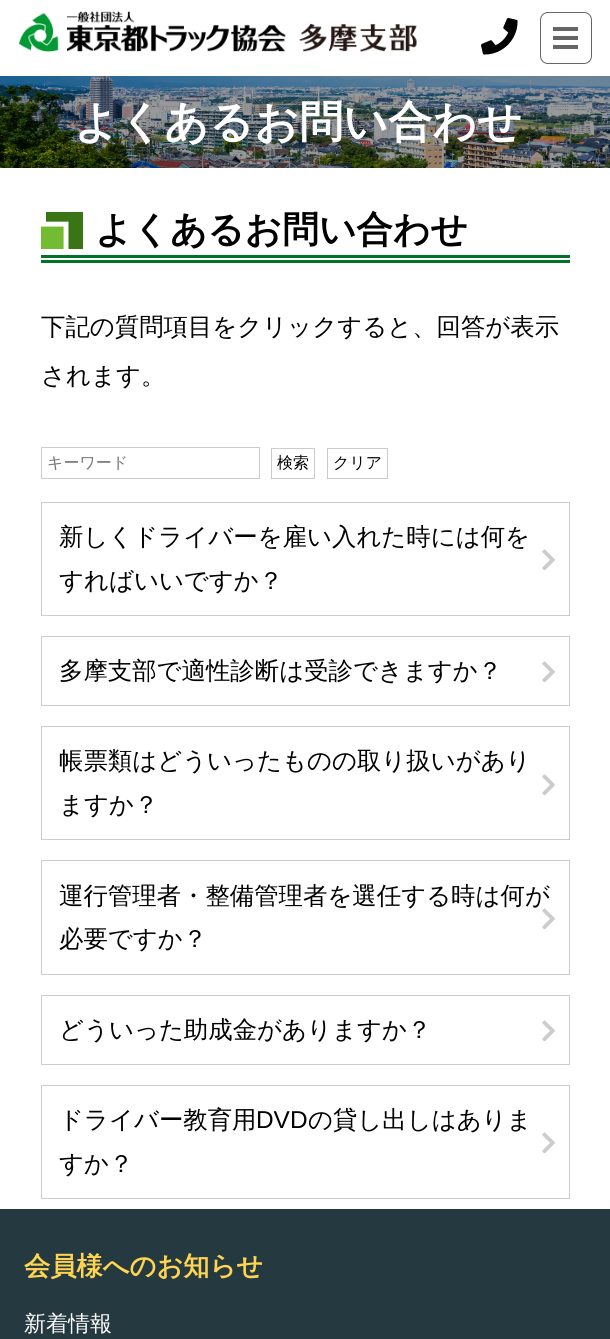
import math
import cairocffi as cairo

surface = cairo.ImageSurface(cairo.FORMAT_RGB24, 610, 1339)
cr = cairo.Context(surface)
options = cairo.FontOptions()
options.set_hint_metrics(cairo.HINT_METRICS_OFF)
options.set_hint_style(cairo.HINT_STYLE_NONE)
cr.set_font_options(options)
cr.set_miter_limit(4)


def use_color(code):
    cr.set_source_rgb(*(v / 255 for v in bytes.fromhex(code[-6:])))


def round_rect(x, y, w, h, r):
    cr.new_sub_path()
    for i, (u, v) in enumerate([(x + w - r, y + h - r), (x + r, y + h - r), (x + r, y + r), (x + w - r, y + r)]):
        cr.arc(u, v, r, i * math.pi / 2, (i + 1) * math.pi / 2)
    cr.close_path()


def picture(path, x, y, w, h):
    cr.save()
    cr.set_source_surface(cairo.ImageSurface.create_from_png(path), x, y)
    cr.rectangle(x, y, w, h)
    cr.fill()
    cr.restore()


use_color("#ffffff")
cr.paint()
picture("img1.png", 18, 11, 399, 41)
picture("img2.png", 481, 18, 37, 37)
round_rect(540.5, 12.5, 51, 51, 7.5)
use_color("#666666")
cr.set_line_width(1)
cr.stroke()
cr.rectangle(553, 27, 25, 4)
cr.fill()
cr.rectangle(553, 36, 25, 4)
cr.fill()
cr.rectangle(553, 45, 25, 4)
cr.fill()
picture("img3.png", 0, 76, 610, 92)
cr.select_font_face("WenQuanYi Zen Hei", cairo.FONT_SLANT_NORMAL, cairo.FONT_WEIGHT_BOLD)
cr.set_font_size(44)
use_color("#ffffff")
cr.move_to(74, 137)
cr.show_text("よくあるお問い合わせ")
picture("img4.png", 41, 212, 42, 37)
use_color("#007424")
cr.rectangle(41, 255, 529, 3)
cr.fill()
cr.rectangle(41, 260, 529, 3)
cr.fill()
cr.set_font_size(36.6)
use_color("#000000")
cr.move_to(95, 242)
cr.show_text("よくあるお問い合わせ")
cr.select_font_face("WenQuanYi Zen Hei Medium")
cr.set_font_size(24.4)
cr.move_to(41, 335)
cr.show_text("下記の質問項目をクリックすると、回答が表示")
cr.move_to(41, 384)
cr.show_text("されます。")
cr.rectangle(41.5, 447.5, 218, 31)
use_color("#cccccc")
cr.stroke()
cr.set_font_size(16)
use_color("#757575")
cr.move_to(47, 468)
cr.show_text("キーワード")
cr.rectangle(271.5, 448.5, 43, 30)
use_color("#cccccc")
cr.stroke()
use_color("#000000")
cr.move_to(277, 468)
cr.show_text("検索")
cr.rectangle(327.5, 448.5, 60, 30)
use_color("#cccccc")
cr.stroke()
use_color("#000000")
cr.move_to(333, 468)
cr.show_text("クリア")
cr.rectangle(41.5, 502.5, 528, 113)
use_color("#cccccc")
cr.stroke()
cr.set_font_size(24.4)
use_color("#000000")
cr.move_to(59, 545)
cr.show_text("新しくドライバーを雇い入れた時には何を")
picture("img5.png", 542, 549, 13, 22)
cr.move_to(59, 589)
cr.show_text("すればいいですか？")
cr.rectangle(41.5, 636.5, 528, 69)
use_color("#cccccc")
cr.stroke()
use_color("#000000")
cr.move_to(59, 679)
cr.show_text("多摩支部で適性診断は受診できますか？")
picture("img5.png", 542, 661, 13, 22)
cr.rectangle(41.5, 726.5, 528, 113)
use_color("#cccccc")
cr.stroke()
use_color("#000000")
cr.move_to(59, 769)
cr.show_text("帳票類はどういったものの取り扱いがあり")
picture("img5.png", 542, 774, 13, 22)
cr.move_to(59, 813)
cr.show_text("ますか？")
cr.rectangle(41.5, 860.5, 528, 114)
use_color("#cccccc")
cr.stroke()
use_color("#000000")
cr.move_to(59, 904)
cr.show_text("運行管理者・整備管理者を選任する時は何が")
picture("img5.png", 542, 908, 13, 22)
cr.move_to(59, 947)
cr.show_text("必要ですか？")
cr.rectangle(41.5, 995.5, 528, 69)
use_color("#cccccc")
cr.stroke()
use_color("#000000")
cr.move_to(59, 1038)
cr.show_text("どういった助成金がありますか？")
picture("img5.png", 542, 1020, 13, 22)
cr.rectangle(41.5, 1085.5, 528, 113)
use_color("#cccccc")
cr.stroke()
use_color("#000000")
cr.move_to(59, 1128)
cr.show_text("ドライバー教育用")
cr.select_font_face("Liberation Sans")
cr.move_to(256, 1128)
cr.show_text("DVD")
cr.select_font_face("WenQuanYi Zen Hei Medium")
cr.move_to(308, 1128)
cr.show_text("の貸し出しはありま")
picture("img5.png", 542, 1132, 13, 22)
cr.move_to(59, 1172)
cr.show_text("すか？")
use_color("#253941")
cr.rectangle(0, 1209, 610, 130)
cr.fill()
cr.select_font_face("WenQuanYi Zen Hei", cairo.FONT_SLANT_NORMAL, cairo.FONT_WEIGHT_BOLD)
cr.set_font_size(26.25)
use_color("#ffd450")
cr.move_to(24, 1275)
cr.show_text("会員様へのお知らせ")
cr.select_font_face("WenQuanYi Zen Hei Medium")
cr.set_font_size(22)
use_color("#ffffff")
cr.move_to(24, 1331)
cr.show_text("新着情報")
surface.write_to_png("result.png")
